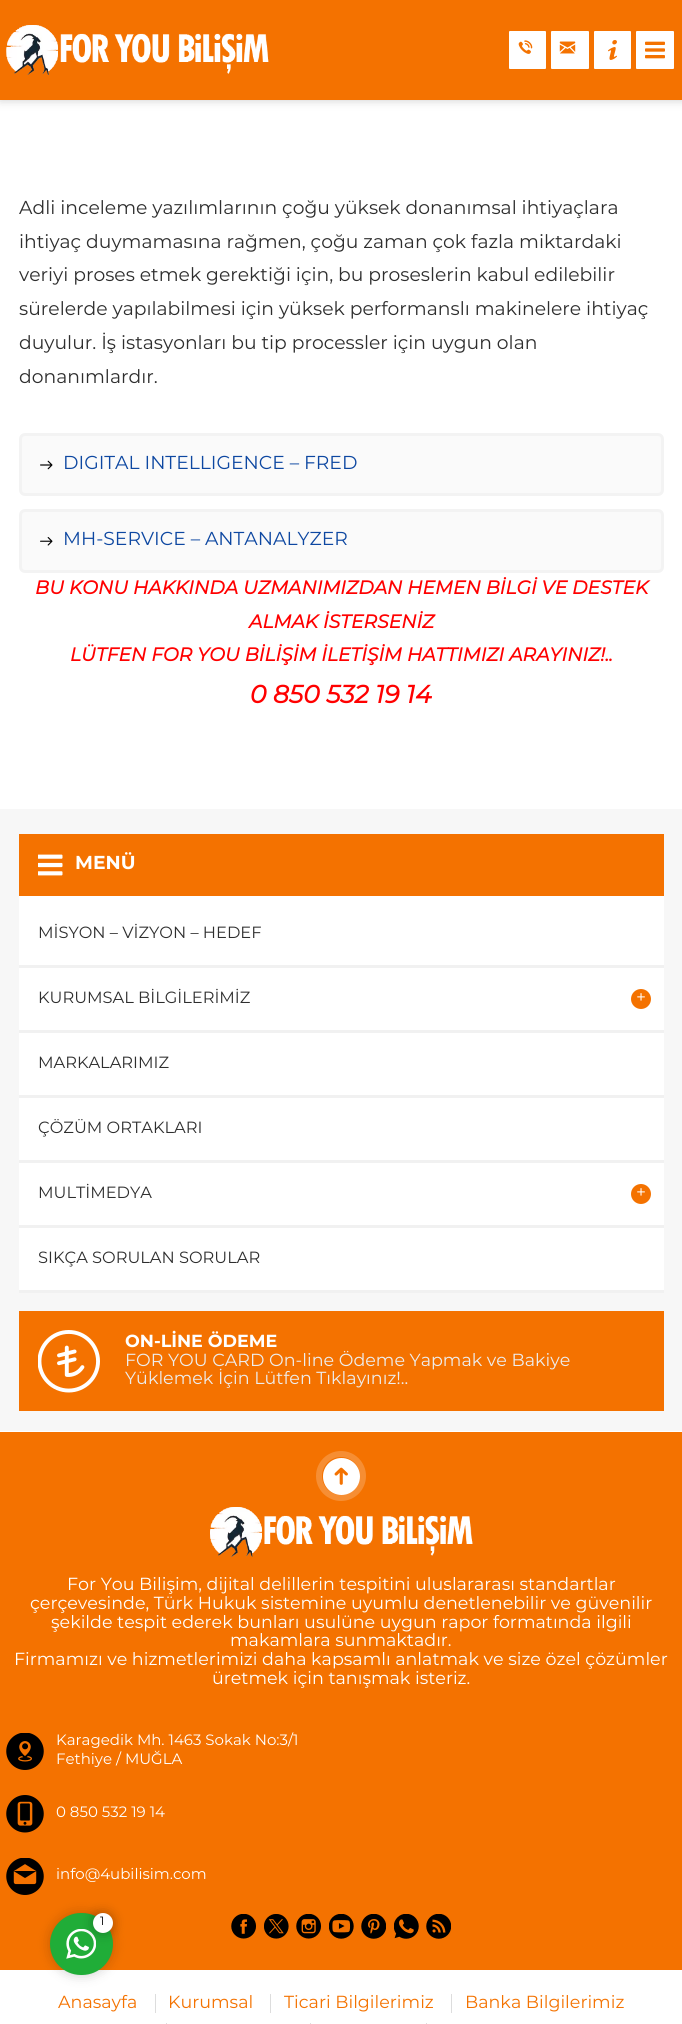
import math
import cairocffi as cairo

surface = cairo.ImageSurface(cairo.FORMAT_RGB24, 682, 2024)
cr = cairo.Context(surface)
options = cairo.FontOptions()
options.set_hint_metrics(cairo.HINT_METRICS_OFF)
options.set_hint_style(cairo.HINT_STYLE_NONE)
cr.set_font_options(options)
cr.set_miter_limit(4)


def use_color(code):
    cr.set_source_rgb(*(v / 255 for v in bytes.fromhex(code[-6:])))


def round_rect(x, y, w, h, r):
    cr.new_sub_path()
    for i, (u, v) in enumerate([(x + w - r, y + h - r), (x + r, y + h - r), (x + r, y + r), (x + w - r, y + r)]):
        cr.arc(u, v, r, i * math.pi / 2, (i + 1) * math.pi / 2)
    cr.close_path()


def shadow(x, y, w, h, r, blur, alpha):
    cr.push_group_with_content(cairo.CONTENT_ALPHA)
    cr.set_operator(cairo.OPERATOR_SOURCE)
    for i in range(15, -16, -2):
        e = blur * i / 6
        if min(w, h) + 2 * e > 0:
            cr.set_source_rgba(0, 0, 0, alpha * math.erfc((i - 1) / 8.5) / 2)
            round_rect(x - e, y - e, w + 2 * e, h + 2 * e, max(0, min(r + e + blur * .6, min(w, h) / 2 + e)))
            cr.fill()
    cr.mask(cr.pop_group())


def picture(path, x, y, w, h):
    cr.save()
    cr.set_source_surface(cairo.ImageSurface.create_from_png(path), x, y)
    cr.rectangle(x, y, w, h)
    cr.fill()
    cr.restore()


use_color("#f7f7f7")
cr.paint()
use_color("#ffffff")
cr.rectangle(0, 100, 682, 709)
cr.fill()
use_color("#000000")
shadow(0, 0, 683, 100, 0, 5, 0.2)
use_color("#f47200")
cr.rectangle(0, 0, 682, 100)
cr.fill()
picture("img1.png", 6, 25, 263, 50)
use_color("#ffffff")
round_rect(509, 31, 37, 38, 1)
cr.fill()
picture("img2.png", 518, 40, 15, 14)
round_rect(551, 31, 38, 38, 1)
cr.fill()
picture("img3.png", 559, 41, 17, 13)
round_rect(594, 31, 37, 38, 1)
cr.fill()
picture("img4.png", 608, 40, 9, 20)
round_rect(636, 31, 38, 38, 1)
cr.fill()
picture("img5.png", 645, 41, 20, 18)
cr.select_font_face("Montserrat")
cr.set_font_size(18.75)
use_color("#2e2e2e")
cr.move_to(19, 214)
cr.show_text("Adli inceleme yazılımlarının çoğu yüksek donanımsal ihtiyaçlara")
cr.move_to(19, 248)
cr.show_text("ihtiyaç duymamasına rağmen, çoğu zaman çok fazla miktardaki")
cr.move_to(19, 281)
cr.show_text("veriyi proses etmek gerektiği için, bu proseslerin kabul edilebilir")
cr.move_to(19, 315)
cr.show_text("sürelerde yapılabilmesi için yüksek performanslı makinelere ihtiyaç")
cr.move_to(19, 349)
cr.show_text("duyulur. İş istasyonları bu tip processler için uygun olan")
cr.move_to(19, 383)
cr.show_text("donanımlardır.")
use_color("#fafafa")
round_rect(20.5, 434.5, 642, 60, 4.5)
cr.fill_preserve()
use_color("#f3f3f3")
cr.set_line_width(3)
cr.stroke()
picture("img6.png", 40, 460, 13, 10)
use_color("#0d47a1")
cr.move_to(63, 469)
cr.show_text("DIGITAL INTELLIGENCE – FRED")
use_color("#fafafa")
round_rect(20.5, 510.5, 642, 61, 4.5)
cr.fill_preserve()
use_color("#f3f3f3")
cr.stroke()
picture("img7.png", 40, 537, 13, 9)
use_color("#0d47a1")
cr.move_to(63, 545)
cr.show_text("MH-SERVICE – ANTANALYZER")
cr.select_font_face("Montserrat", cairo.FONT_SLANT_ITALIC, cairo.FONT_WEIGHT_BOLD)
use_color("#ff0000")
cr.move_to(35, 594)
cr.show_text("BU KONU HAKKINDA UZMANIMIZDAN HEMEN BİLGİ VE DESTEK")
cr.move_to(249, 628)
cr.show_text("ALMAK İSTERSENİZ")
cr.move_to(70, 661)
cr.show_text("LÜTFEN FOR YOU BİLİŞİM İLETİŞİM HATTIMIZI ARAYINIZ!..")
cr.set_font_size(25)
cr.move_to(250, 703)
cr.show_text("0 850 532 19 14")
use_color("#ffffff")
cr.rectangle(19, 896, 645, 394)
cr.fill()
use_color("#f47200")
cr.rectangle(19, 834, 645, 62)
cr.fill()
picture("img8.png", 38, 854, 25, 22)
cr.select_font_face("Montserrat", cairo.FONT_SLANT_NORMAL, cairo.FONT_WEIGHT_BOLD)
cr.set_font_size(18.75)
use_color("#ffffff")
cr.move_to(75, 869)
cr.show_text("MENÜ")
use_color("#f1f1f1")
cr.rectangle(19, 965, 645, 3)
cr.fill()
cr.select_font_face("Montserrat")
cr.set_font_size(16.25)
use_color("#2e2e2e")
cr.move_to(38, 938)
cr.show_text("MİSYON – VİZYON – HEDEF")
use_color("#f1f1f1")
cr.rectangle(19, 1030, 645, 3)
cr.fill()
use_color("#2e2e2e")
cr.move_to(38, 1003)
cr.show_text("KURUMSAL BİLGİLERİMİZ")
use_color("#f47200")
cr.new_path()
cr.arc(641, 999, 10, 0, 2 * math.pi)
cr.fill()
cr.set_font_size(17.5)
use_color("#ffffff")
cr.move_to(636, 1003)
cr.show_text("+")
use_color("#f1f1f1")
cr.rectangle(19, 1095, 645, 3)
cr.fill()
cr.set_font_size(16.25)
use_color("#2e2e2e")
cr.move_to(38, 1068)
cr.show_text("MARKALARIMIZ")
use_color("#f1f1f1")
cr.rectangle(19, 1160, 645, 3)
cr.fill()
use_color("#2e2e2e")
cr.move_to(38, 1133)
cr.show_text("ÇÖZÜM ORTAKLARI")
use_color("#f1f1f1")
cr.rectangle(19, 1225, 645, 3)
cr.fill()
use_color("#2e2e2e")
cr.move_to(38, 1198)
cr.show_text("MULTİMEDYA")
use_color("#f47200")
cr.new_path()
cr.arc(641, 1194, 10, 0, 2 * math.pi)
cr.fill()
cr.set_font_size(17.5)
use_color("#ffffff")
cr.move_to(636, 1198)
cr.show_text("+")
use_color("#f1f1f1")
cr.rectangle(19, 1290, 645, 3)
cr.fill()
cr.set_font_size(16.25)
use_color("#2e2e2e")
cr.move_to(38, 1263)
cr.show_text("SIKÇA SORULAN SORULAR")
use_color("#f47200")
cr.rectangle(19, 1311, 645, 100)
cr.fill()
picture("img9.png", 38, 1330, 62, 63)
cr.select_font_face("Montserrat", cairo.FONT_SLANT_NORMAL, cairo.FONT_WEIGHT_BOLD)
cr.set_font_size(17.5)
use_color("#ffffff")
cr.move_to(125, 1347)
cr.show_text("ON-LİNE ÖDEME")
cr.select_font_face("Montserrat")
use_color("#ededed")
cr.move_to(125, 1366)
cr.show_text("FOR YOU CARD On-line Ödeme Yapmak ve Bakiye")
cr.move_to(125, 1384)
cr.show_text("Yüklemek İçin Lütfen Tıklayınız!..")
use_color("#f47200")
cr.rectangle(0, 1432, 682, 538)
cr.fill()
use_color("#ffffff")
cr.rectangle(0, 1431, 682, 1)
cr.fill()
cr.arc(341, 1476, 22, 0, 2 * math.pi)
use_color("#f68e33")
cr.set_line_width(6)
cr.stroke()
use_color("#ffffff")
cr.arc(341.5, 1476.5, 18.5, 0, 2 * math.pi)
cr.fill()
picture("img10.png", 334, 1467, 14, 18)
picture("img11.png", 210, 1507, 263, 50)
cr.move_to(67, 1590)
cr.show_text("For You Bilişim, dijital delillerin tespitini uluslararası standartlar")
cr.move_to(30, 1609)
cr.show_text("çerçevesinde, Türk Hukuk sistemine uyumlu denetlenebilir ve güvenilir")
cr.move_to(51, 1628)
cr.show_text("şekilde tespit ederek bunları usulüne uygun rapor formatında ilgili")
cr.move_to(230, 1646)
cr.show_text("makamlara sunmaktadır.")
cr.move_to(14, 1665)
cr.show_text("Firmamızı ve hizmetlerimizi daha kapsamlı anlatmak ve size özel çözümler")
cr.move_to(212, 1684)
cr.show_text("üretmek için tanışmak isteriz.")
picture("img12.png", 6, 1733, 38, 37)
cr.set_font_size(15)
cr.move_to(56, 1745)
cr.show_text("Karagedik Mh. 1463 Sokak No:3/1")
cr.move_to(56, 1764)
cr.show_text("Fethiye / MUĞLA")
picture("img13.png", 6, 1795, 38, 38)
cr.move_to(56, 1817)
cr.show_text("0 850 532 19 14")
picture("img14.png", 6, 1858, 38, 37)
cr.move_to(56, 1879)
cr.show_text("info@4ubilisim.com")
picture("img15.png", 231, 1914, 25, 25)
picture("img16.png", 264, 1914, 25, 25)
picture("img17.png", 296, 1914, 25, 25)
picture("img18.png", 329, 1914, 25, 25)
picture("img19.png", 361, 1914, 25, 25)
picture("img20.png", 394, 1914, 25, 25)
picture("img21.png", 426, 1914, 25, 25)
cr.rectangle(0, 1970, 682, 54)
cr.fill()
use_color("#000000")
shadow(50, 1913, 63, 62, 31, 6, 0.2)
use_color("#20ad38")
round_rect(50, 1913, 63, 62, 31)
cr.fill()
picture("img22.png", 66, 1929, 30, 30)
use_color("#000000")
shadow(93, 1913, 20, 20, 10, 6, 0.28)
use_color("#ffffff")
cr.arc(103, 1923, 10, 0, 2 * math.pi)
cr.fill()
cr.set_font_size(12)
use_color("#000000")
cr.move_to(100, 1925)
cr.show_text("1")
cr.set_font_size(17.5)
use_color("#f47200")
cr.move_to(58, 2008)
cr.show_text("Anasayfa")
use_color("#dddddd")
cr.rectangle(155, 1994, 1, 19)
cr.fill()
use_color("#f47200")
cr.move_to(168, 2008)
cr.show_text("Kurumsal")
use_color("#dddddd")
cr.rectangle(270, 1994, 1, 19)
cr.fill()
use_color("#f47200")
cr.move_to(284, 2008)
cr.show_text("Ticari Bilgilerimiz")
use_color("#dddddd")
cr.rectangle(451, 1994, 1, 19)
cr.fill()
use_color("#f47200")
cr.move_to(465, 2008)
cr.show_text("Banka Bilgilerimiz")
use_color("#dddddd")
cr.rectangle(166, 2023, 1, 1)
cr.fill()
cr.rectangle(310, 2023, 1, 1)
cr.fill()
cr.rectangle(426, 2023, 1, 1)
cr.fill()
surface.write_to_png("result.png")
